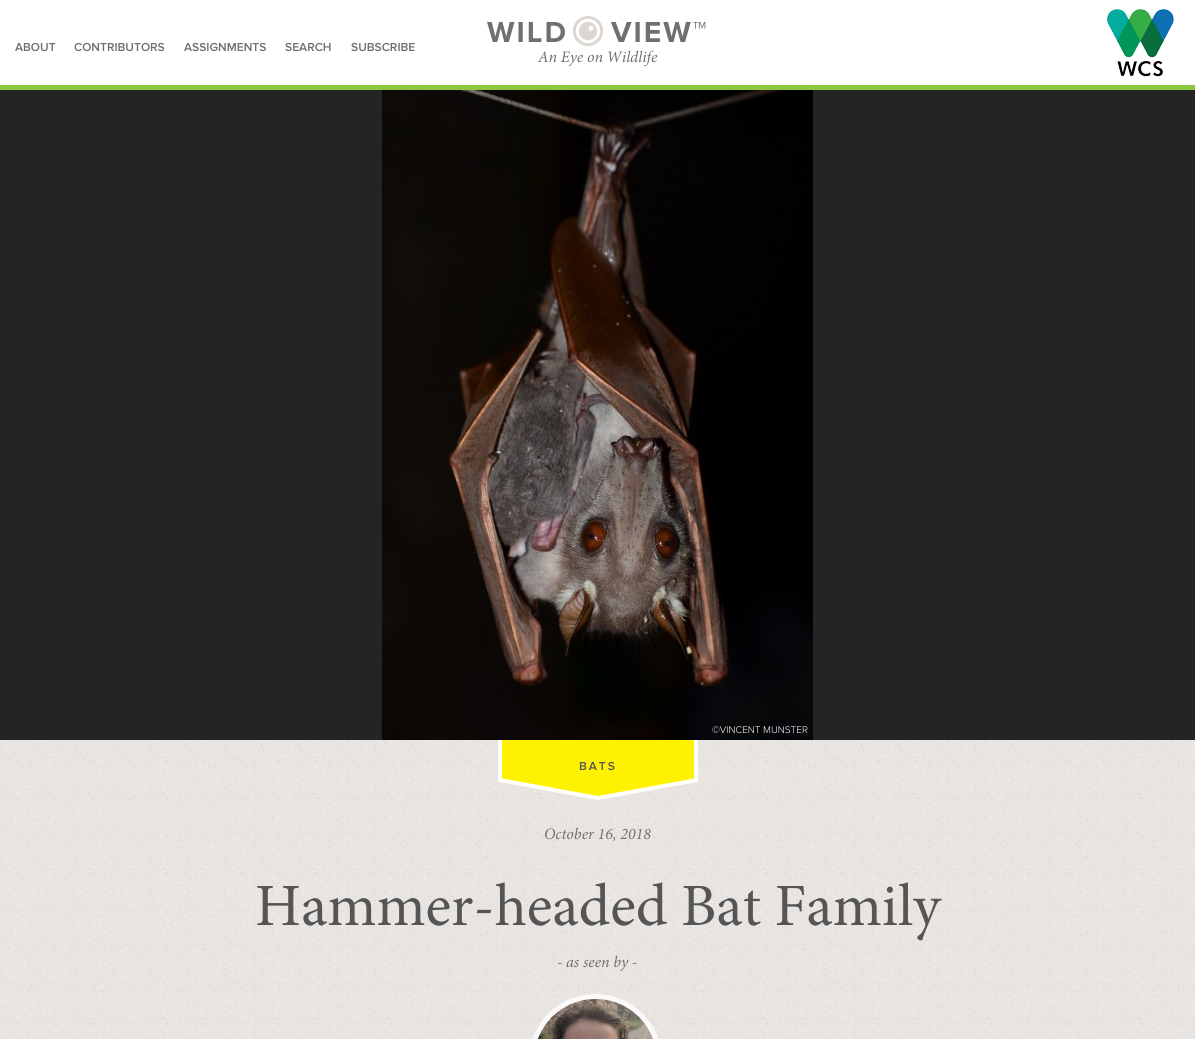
import math
import cairocffi as cairo

surface = cairo.ImageSurface(cairo.FORMAT_RGB24, 1195, 1039)
cr = cairo.Context(surface)
options = cairo.FontOptions()
options.set_hint_metrics(cairo.HINT_METRICS_OFF)
options.set_hint_style(cairo.HINT_STYLE_NONE)
cr.set_font_options(options)
cr.set_miter_limit(4)


def use_color(code):
    cr.set_source_rgb(*(v / 255 for v in bytes.fromhex(code[-6:])))


def spaced_text(x, y, s, letter, word):
    cr.move_to(x, y)
    for ch in s:
        cr.show_text(ch)
        cr.rel_move_to(letter + word * (ch == ' '), 0)


def picture(path, x, y, w, h):
    cr.save()
    cr.set_source_surface(cairo.ImageSurface.create_from_png(path), x, y)
    cr.rectangle(x, y, w, h)
    cr.fill()
    cr.restore()


use_color("#ffffff")
cr.paint()
picture("img1.png", 0, 740, 1195, 299)
use_color("#8dc63f")
cr.rectangle(0, 85, 1195, 5)
cr.fill()
cr.select_font_face("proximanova", cairo.FONT_SLANT_NORMAL, cairo.FONT_WEIGHT_BOLD)
cr.set_font_size(30)
use_color("#707070")
spaced_text(487, 42, "WILD", 2, 0)
picture("img2.png", 573, 16, 30, 30)
spaced_text(611, 42, "VIEW™", 2, 0)
picture("img3.png", 1107, 9, 67, 68)
cr.select_font_face("proximanova SemiBold")
cr.set_font_size(12)
cr.move_to(15, 51)
cr.show_text("ABOUT")
cr.move_to(74, 51)
cr.show_text("CONTRIBUTORS")
cr.move_to(184, 51)
cr.show_text("ASSIGNMENTS")
cr.move_to(285, 51)
cr.show_text("SEARCH")
cr.move_to(351, 51)
cr.show_text("SUBSCRIBE")
cr.select_font_face("minion", cairo.FONT_SLANT_ITALIC)
cr.set_font_size(16)
cr.move_to(538, 62)
cr.show_text("An Eye on Wildlife")
picture("img4.png", 0, 90, 1195, 650)
picture("img5.png", 382, 90, 431, 650)
cr.select_font_face("proximanova Light")
cr.set_font_size(10)
use_color("#ffffff")
cr.move_to(712, 733)
cr.show_text("©VINCENT MUNSTER")
picture("img6.png", 498, 740, 200, 60)
cr.select_font_face("proximanova SemiBold")
cr.set_font_size(12)
use_color("#555555")
spaced_text(579, 770, "BATS", 2, 0)
cr.select_font_face("minion", cairo.FONT_SLANT_ITALIC)
cr.set_font_size(16)
use_color("#707070")
cr.move_to(544, 839)
cr.show_text("October 16, 2018")
cr.select_font_face("minion")
cr.set_font_size(60)
use_color("#555555")
cr.move_to(255, 925)
cr.show_text("Hammer-headed Bat Family")
cr.select_font_face("minion", cairo.FONT_SLANT_ITALIC)
cr.set_font_size(16)
use_color("#707070")
cr.move_to(557, 967)
cr.show_text("- as seen by -")
picture("img7.png", 532, 994, 127, 45)
surface.write_to_png("result.png")
